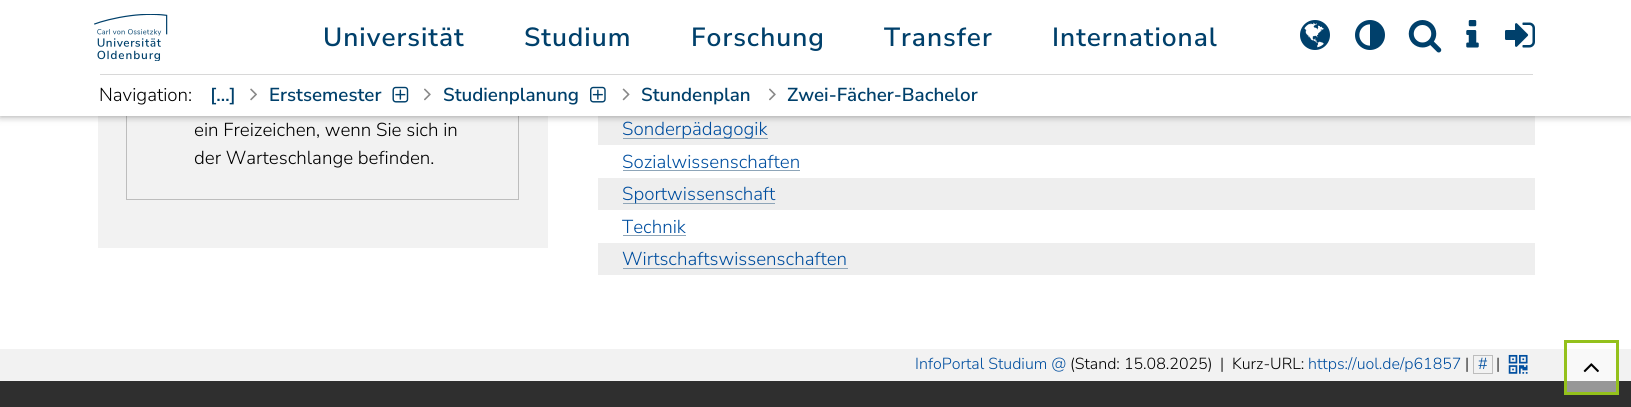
import math
import cairocffi as cairo

surface = cairo.ImageSurface(cairo.FORMAT_RGB24, 1631, 407)
cr = cairo.Context(surface)
options = cairo.FontOptions()
options.set_hint_metrics(cairo.HINT_METRICS_OFF)
options.set_hint_style(cairo.HINT_STYLE_NONE)
cr.set_font_options(options)
cr.set_miter_limit(4)


def use_color(code):
    cr.set_source_rgb(*(v / 255 for v in bytes.fromhex(code[-6:])))


def spaced_text(x, y, s, letter, word):
    cr.move_to(x, y)
    for ch in s:
        cr.show_text(ch)
        cr.rel_move_to(letter + word * (ch == ' '), 0)


def round_rect(x, y, w, h, r):
    cr.new_sub_path()
    for i, (u, v) in enumerate([(x + w - r, y + h - r), (x + r, y + h - r), (x + r, y + r), (x + w - r, y + r)]):
        cr.arc(u, v, r, i * math.pi / 2, (i + 1) * math.pi / 2)
    cr.close_path()


def shadow(x, y, w, h, r, blur, alpha):
    cr.push_group_with_content(cairo.CONTENT_ALPHA)
    cr.set_operator(cairo.OPERATOR_SOURCE)
    for i in range(15, -16, -2):
        e = blur * i / 6
        if min(w, h) + 2 * e > 0:
            cr.set_source_rgba(0, 0, 0, alpha * math.erfc((i - 1) / 8.5) / 2)
            round_rect(x - e, y - e, w + 2 * e, h + 2 * e, max(0, min(r + e + blur * .6, min(w, h) / 2 + e)))
            cr.fill()
    cr.mask(cr.pop_group())


def picture(path, x, y, w, h):
    cr.save()
    cr.set_source_surface(cairo.ImageSurface.create_from_png(path), x, y)
    cr.rectangle(x, y, w, h)
    cr.fill()
    cr.restore()


use_color("#ffffff")
cr.paint()
use_color("#f2f2f2")
cr.rectangle(98, 116, 450, 132)
cr.fill()
cr.rectangle(126.5, -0.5, 392, 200)
use_color("#bdbdbd")
cr.set_line_width(1)
cr.stroke()
use_color("#eeeeee")
cr.rectangle(598, 116, 937, 29)
cr.fill()
use_color("#000000")
shadow(0, 0, 1631, 116, 0, 4, 0.4)
use_color("#ffffff")
cr.rectangle(0, 0, 1631, 116)
cr.fill()
picture("img1.png", 94, 14, 74, 47)
cr.select_font_face("Nunito Sans SemiBold")
cr.set_font_size(26.25)
use_color("#00406b")
spaced_text(323, 46, "Universität", 1, 0)
spaced_text(524, 46, "Studium", 1, 0)
spaced_text(691, 46, "Forschung", 1, 0)
spaced_text(884, 46, "Transfer", 1, 0)
spaced_text(1052, 46, "International", 1, 0)
picture("img2.png", 1300, 20, 30, 30)
picture("img3.png", 1355, 20, 30, 30)
picture("img4.png", 1408, 20, 34, 33)
picture("img5.png", 1466, 20, 13, 28)
picture("img6.png", 1505, 22, 30, 26)
use_color("#d8d8d8")
cr.rectangle(100, 74, 1433, 1)
cr.fill()
cr.select_font_face("Nunito Sans Light")
cr.set_font_size(18.75)
use_color("#000000")
cr.move_to(99, 101)
cr.show_text("Navigation:")
cr.select_font_face("Nunito Sans SemiBold")
use_color("#00406b")
cr.move_to(210, 101)
cr.show_text("[…]")
picture("img7.png", 250, 88, 7, 13)
cr.move_to(269, 101)
cr.show_text("Erstsemester")
picture("img8.png", 392, 86, 17, 17)
picture("img9.png", 424, 88, 7, 13)
cr.move_to(443, 101)
cr.show_text("Studienplanung")
picture("img10.png", 590, 86, 16, 17)
picture("img11.png", 622, 88, 8, 13)
cr.move_to(641, 101)
cr.show_text("Stundenplan")
picture("img9.png", 769, 88, 7, 13)
cr.move_to(787, 101)
cr.show_text("Zwei-Fächer-Bachelor")
cr.select_font_face("Nunito Sans Light")
use_color("#000000")
cr.move_to(194, 136)
cr.show_text("ein Freizeichen, wenn Sie sich in")
cr.move_to(194, 164)
cr.show_text("der Warteschlange befinden.")
use_color("#8ea5b8")
cr.rectangle(623, 138, 145, 1)
cr.fill()
use_color("#004e9f")
cr.move_to(622, 135)
cr.show_text("Sonderpädagogik")
cr.move_to(622, 168)
cr.show_text("Sozialwissenschaften")
use_color("#8ea5b8")
cr.rectangle(623, 170, 177, 1)
cr.fill()
use_color("#eeeeee")
cr.rectangle(598, 178, 937, 32)
cr.fill()
use_color("#8ea5b8")
cr.rectangle(623, 203, 152, 1)
cr.fill()
use_color("#004e9f")
cr.move_to(622, 200)
cr.show_text("Sportwissenschaft")
cr.move_to(622, 233)
cr.show_text("Technik")
use_color("#8ea5b8")
cr.rectangle(623, 235, 63, 1)
cr.fill()
use_color("#eeeeee")
cr.rectangle(598, 243, 937, 32)
cr.fill()
use_color("#004e9f")
cr.move_to(622, 265)
cr.show_text("Wirtschaftswissenschaften")
use_color("#8ea5b8")
cr.rectangle(623, 268, 225, 1)
cr.fill()
use_color("#f2f2f2")
cr.rectangle(0, 349, 1631, 32)
cr.fill()
use_color("#f9f9f9")
cr.rectangle(1567, 349, 49, 32)
cr.fill()
cr.set_font_size(16)
use_color("#004e9f")
cr.move_to(915, 369)
cr.show_text("InfoPortal Studium @")
use_color("#000000")
cr.move_to(1070, 369)
cr.show_text("(Stand: 15.08.2025)")
cr.move_to(1220, 369)
cr.show_text("|")
cr.move_to(1232, 369)
cr.show_text("Kurz-URL:")
use_color("#004e9f")
cr.move_to(1308, 369)
cr.show_text("https://uol.de/p61857")
use_color("#000000")
cr.move_to(1465, 369)
cr.show_text("|")
cr.rectangle(1473.5, 355.5, 19, 18)
use_color("#bdbdbd")
cr.stroke()
use_color("#004e9f")
cr.move_to(1478, 369)
cr.show_text("#")
use_color("#000000")
cr.move_to(1496, 369)
cr.show_text("|")
picture("img12.png", 1508, 354, 20, 20)
use_color("#2f2f2f")
cr.rectangle(0, 381, 1631, 26)
cr.fill()
use_color("#979797")
cr.rectangle(1567, 381, 49, 11)
cr.fill()
cr.rectangle(1565.5, 341.5, 52, 52)
use_color("#94c11c")
cr.set_line_width(3)
cr.stroke()
picture("img13.png", 1583, 363, 16, 10)
surface.write_to_png("result.png")
